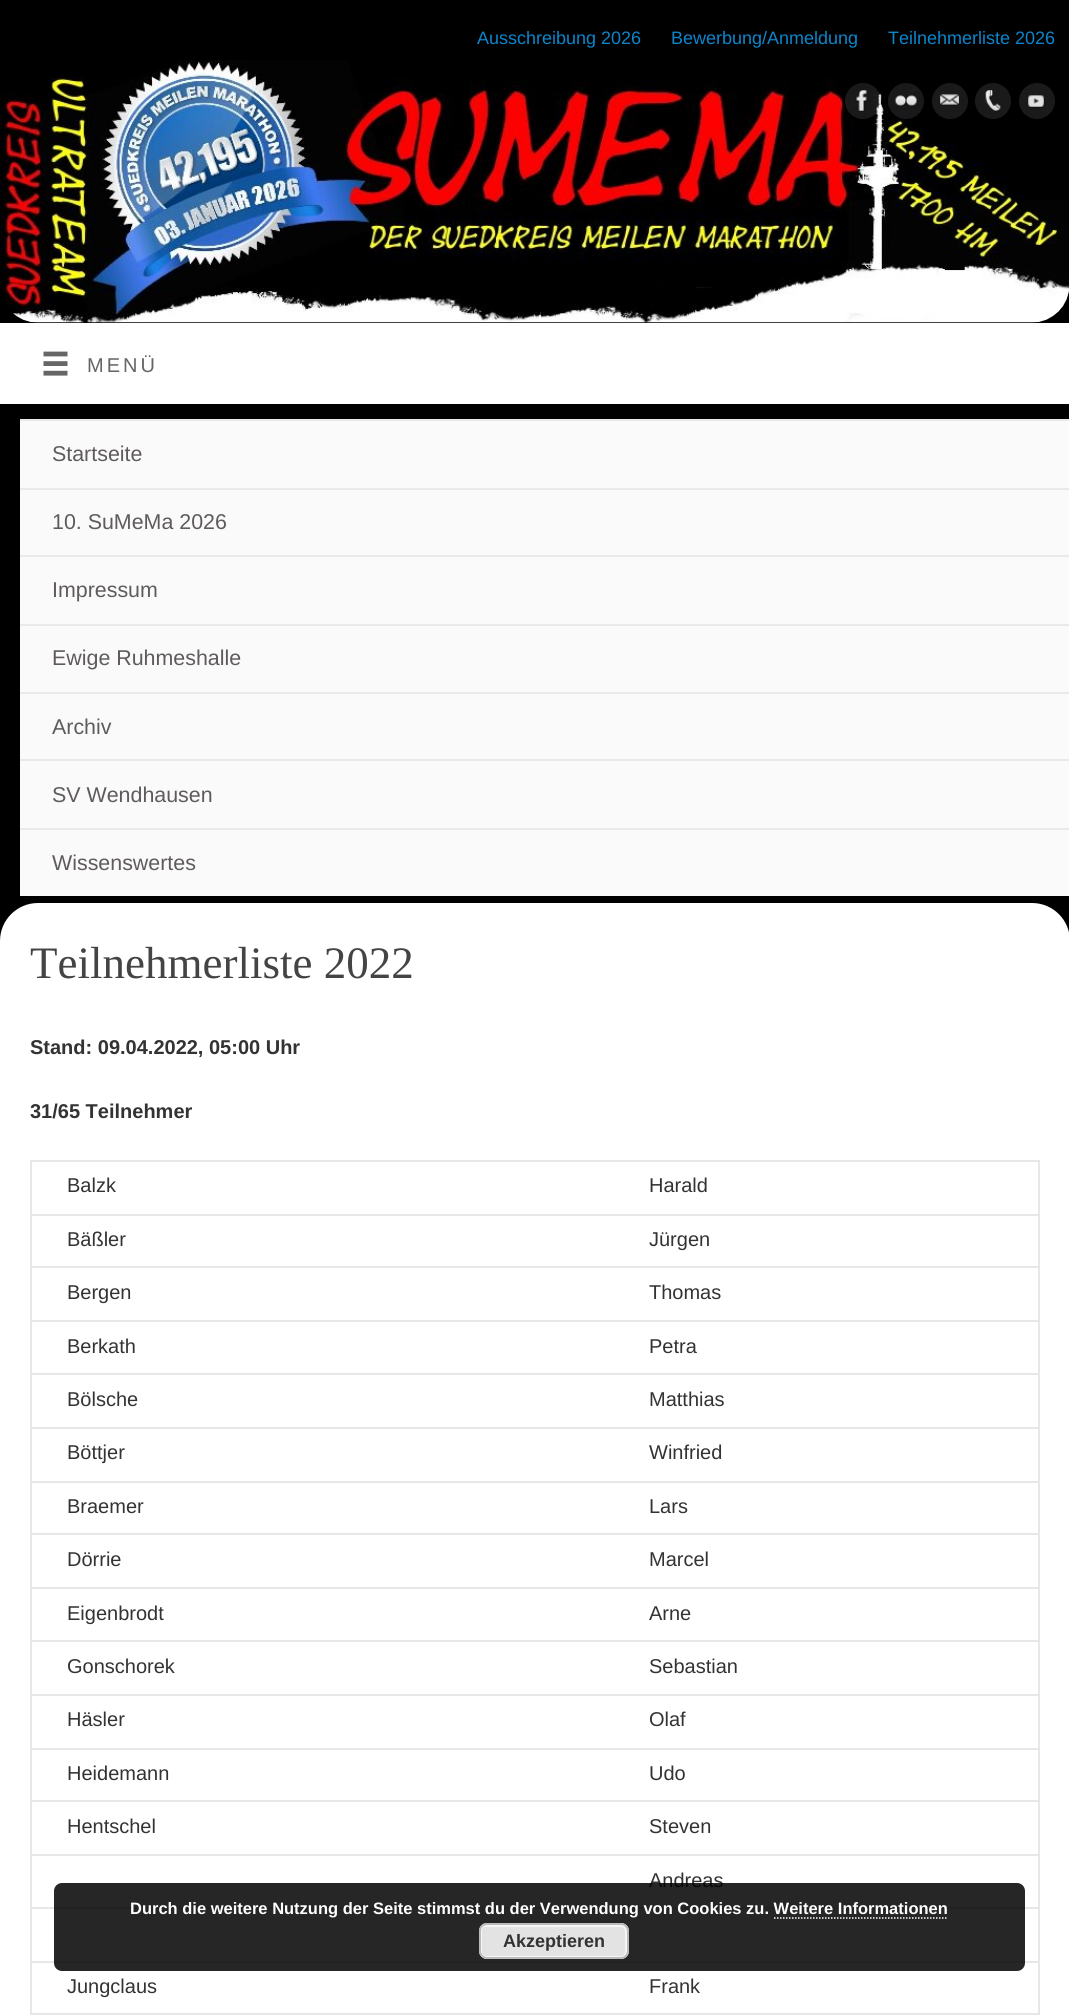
import math
import cairocffi as cairo

surface = cairo.ImageSurface(cairo.FORMAT_RGB24, 1069, 2015)
cr = cairo.Context(surface)
options = cairo.FontOptions()
options.set_hint_metrics(cairo.HINT_METRICS_OFF)
options.set_hint_style(cairo.HINT_STYLE_NONE)
cr.set_font_options(options)
cr.set_miter_limit(4)


def use_color(code):
    cr.set_source_rgb(*(v / 255 for v in bytes.fromhex(code[-6:])))


def spaced_text(x, y, s, letter, word):
    cr.move_to(x, y)
    for ch in s:
        cr.show_text(ch)
        cr.rel_move_to(letter + word * (ch == ' '), 0)


def round_rect(x, y, w, h, r):
    cr.new_sub_path()
    for i, (u, v) in enumerate([(x + w - r, y + h - r), (x + r, y + h - r), (x + r, y + r), (x + w - r, y + r)]):
        cr.arc(u, v, r, i * math.pi / 2, (i + 1) * math.pi / 2)
    cr.close_path()


def picture(path, x, y, w, h):
    cr.save()
    cr.set_source_surface(cairo.ImageSurface.create_from_png(path), x, y)
    cr.rectangle(x, y, w, h)
    cr.fill()
    cr.restore()


use_color("#000000")
cr.paint()
cr.select_font_face("Liberation Sans")
cr.set_font_size(18)
use_color("#0d85cc")
cr.move_to(477, 44)
cr.show_text("Ausschreibung 2026")
cr.move_to(671, 44)
cr.show_text("Bewerbung/Anmeldung")
cr.move_to(888, 44)
cr.show_text("Teilnehmerliste 2026")
picture("img1.png", 0, 60, 1069, 263)
cr.set_source_rgba(1, 1, 1, 0.1)
cr.arc(863, 101, 18, 0, 2 * math.pi)
cr.fill()
picture("img2.png", 856, 90, 11, 22)
cr.arc(906, 101, 18, 0, 2 * math.pi)
cr.fill()
picture("img3.png", 895, 95, 23, 12)
use_color("#1a1a1a")
cr.arc(950, 101, 18, 0, 2 * math.pi)
cr.fill()
picture("img4.png", 940, 94, 19, 12)
cr.arc(993, 101, 18, 0, 2 * math.pi)
cr.fill()
picture("img5.png", 985, 90, 16, 22)
cr.arc(1037, 101, 18, 0, 2 * math.pi)
cr.fill()
picture("img6.png", 1028, 95, 17, 13)
use_color("#ffffff")
cr.rectangle(0, 323, 1069, 81)
cr.fill()
picture("img7.png", 43, 351, 25, 25)
cr.set_font_size(20)
use_color("#666666")
spaced_text(87, 372, "MENÜ", 3, 0)
use_color("#fafafa")
cr.rectangle(20, 421, 1049, 67)
cr.fill()
use_color("#e9e9e9")
cr.rectangle(20, 419, 1049, 2)
cr.fill()
cr.set_font_size(21.4)
use_color("#5f5b5b")
cr.move_to(52, 461)
cr.show_text("Startseite")
use_color("#fafafa")
cr.rectangle(20, 490, 1049, 65)
cr.fill()
use_color("#e9e9e9")
cr.rectangle(20, 488, 1049, 2)
cr.fill()
use_color("#5f5b5b")
cr.move_to(52, 529)
cr.show_text("10. SuMeMa 2026")
use_color("#fafafa")
cr.rectangle(20, 557, 1049, 67)
cr.fill()
use_color("#e9e9e9")
cr.rectangle(20, 555, 1049, 2)
cr.fill()
use_color("#5f5b5b")
cr.move_to(52, 597)
cr.show_text("Impressum")
use_color("#fafafa")
cr.rectangle(20, 626, 1049, 66)
cr.fill()
use_color("#e9e9e9")
cr.rectangle(20, 624, 1049, 2)
cr.fill()
use_color("#5f5b5b")
cr.move_to(52, 665)
cr.show_text("Ewige Ruhmeshalle")
use_color("#fafafa")
cr.rectangle(20, 694, 1049, 65)
cr.fill()
use_color("#e9e9e9")
cr.rectangle(20, 692, 1049, 2)
cr.fill()
use_color("#5f5b5b")
cr.move_to(52, 734)
cr.show_text("Archiv")
use_color("#fafafa")
cr.rectangle(20, 761, 1049, 67)
cr.fill()
use_color("#e9e9e9")
cr.rectangle(20, 759, 1049, 2)
cr.fill()
use_color("#5f5b5b")
cr.move_to(52, 802)
cr.show_text("SV Wendhausen")
use_color("#fafafa")
cr.rectangle(20, 830, 1049, 66)
cr.fill()
use_color("#e9e9e9")
cr.rectangle(20, 828, 1049, 2)
cr.fill()
use_color("#5f5b5b")
cr.move_to(52, 870)
cr.show_text("Wissenswertes")
use_color("#ffffff")
round_rect(0, 903, 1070, 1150, 38)
cr.fill()
cr.select_font_face("Liberation Serif")
cr.set_font_size(45)
use_color("#444444")
cr.move_to(30, 978)
cr.show_text("Teilnehmerliste 2022")
cr.select_font_face("Liberation Sans", cairo.FONT_SLANT_NORMAL, cairo.FONT_WEIGHT_BOLD)
cr.set_font_size(20)
use_color("#333333")
cr.move_to(30, 1054)
cr.show_text("Stand: 09.04.2022, 05:00 Uhr")
cr.move_to(30, 1118)
cr.show_text("31/65 Teilnehmer")
use_color("#e7e7e7")
cr.rectangle(30, 1160, 1010, 2)
cr.fill()
cr.rectangle(1038, 1160, 2, 855)
cr.fill()
cr.rectangle(30, 1160, 2, 855)
cr.fill()
cr.select_font_face("Liberation Sans")
use_color("#333333")
cr.move_to(67, 1192)
cr.show_text("Balzk")
cr.move_to(649, 1192)
cr.show_text("Harald")
cr.move_to(67, 1246)
cr.show_text("Bäßler")
use_color("#e7e7e7")
cr.rectangle(30, 1214, 1010, 2)
cr.fill()
use_color("#333333")
cr.move_to(649, 1246)
cr.show_text("Jürgen")
cr.move_to(67, 1299)
cr.show_text("Bergen")
use_color("#e7e7e7")
cr.rectangle(30, 1266, 1010, 2)
cr.fill()
use_color("#333333")
cr.move_to(649, 1299)
cr.show_text("Thomas")
cr.move_to(67, 1353)
cr.show_text("Berkath")
use_color("#e7e7e7")
cr.rectangle(30, 1320, 1010, 2)
cr.fill()
use_color("#333333")
cr.move_to(649, 1353)
cr.show_text("Petra")
cr.move_to(67, 1406)
cr.show_text("Bölsche")
use_color("#e7e7e7")
cr.rectangle(30, 1373, 1010, 2)
cr.fill()
use_color("#333333")
cr.move_to(649, 1406)
cr.show_text("Matthias")
cr.move_to(67, 1459)
cr.show_text("Böttjer")
use_color("#e7e7e7")
cr.rectangle(30, 1427, 1010, 2)
cr.fill()
use_color("#333333")
cr.move_to(649, 1459)
cr.show_text("Winfried")
cr.move_to(67, 1513)
cr.show_text("Braemer")
use_color("#e7e7e7")
cr.rectangle(30, 1481, 1010, 2)
cr.fill()
use_color("#333333")
cr.move_to(649, 1513)
cr.show_text("Lars")
cr.move_to(67, 1566)
cr.show_text("Dörrie")
use_color("#e7e7e7")
cr.rectangle(30, 1533, 1010, 2)
cr.fill()
use_color("#333333")
cr.move_to(649, 1566)
cr.show_text("Marcel")
cr.move_to(67, 1620)
cr.show_text("Eigenbrodt")
use_color("#e7e7e7")
cr.rectangle(30, 1587, 1010, 2)
cr.fill()
use_color("#333333")
cr.move_to(649, 1620)
cr.show_text("Arne")
cr.move_to(67, 1673)
cr.show_text("Gonschorek")
use_color("#e7e7e7")
cr.rectangle(30, 1640, 1010, 2)
cr.fill()
use_color("#333333")
cr.move_to(649, 1673)
cr.show_text("Sebastian")
cr.move_to(67, 1726)
cr.show_text("Häsler")
use_color("#e7e7e7")
cr.rectangle(30, 1694, 1010, 2)
cr.fill()
use_color("#333333")
cr.move_to(649, 1726)
cr.show_text("Olaf")
cr.move_to(67, 1780)
cr.show_text("Heidemann")
use_color("#e7e7e7")
cr.rectangle(30, 1748, 1010, 2)
cr.fill()
use_color("#333333")
cr.move_to(649, 1780)
cr.show_text("Udo")
cr.move_to(67, 1833)
cr.show_text("Hentschel")
use_color("#e7e7e7")
cr.rectangle(30, 1800, 1010, 2)
cr.fill()
use_color("#333333")
cr.move_to(649, 1833)
cr.show_text("Steven")
use_color("#e7e7e7")
cr.rectangle(30, 1854, 1010, 2)
cr.fill()
use_color("#333333")
cr.move_to(649, 1887)
cr.show_text("Andreas")
use_color("#e7e7e7")
cr.rectangle(30, 1907, 1010, 2)
cr.fill()
use_color("#333333")
cr.move_to(67, 1993)
cr.show_text("Jungclaus")
use_color("#e7e7e7")
cr.rectangle(30, 1961, 1010, 2)
cr.fill()
use_color("#333333")
cr.move_to(649, 1993)
cr.show_text("Frank")
use_color("#e7e7e7")
cr.rectangle(30, 2013, 1010, 2)
cr.fill()
cr.set_source_rgba(0, 0, 0, 0.85)
round_rect(54, 1883, 971, 88, 8)
cr.fill()
cr.select_font_face("Liberation Sans", cairo.FONT_SLANT_NORMAL, cairo.FONT_WEIGHT_BOLD)
cr.set_font_size(16.5)
use_color("#ffffff")
cr.move_to(130, 1914)
cr.show_text("Durch die weitere Nutzung der Seite stimmst du der Verwendung von Cookies zu. Weitere Informationen")
cr.new_path()
cr.move_to(774, 1918)
cr.line_to(948, 1918)
cr.set_line_width(1.5)
cr.set_dash([1.5, 1.5])
cr.stroke()
use_color("#e3e3e3")
round_rect(479, 1923, 150, 36, 8)
cr.fill()
round_rect(481, 1926, 145, 31, 5)
use_color("#f6f6f6")
cr.set_line_width(2)
cr.set_dash([])
cr.stroke()
round_rect(480, 1924, 148, 34, 7)
use_color("#bbbbbb")
cr.stroke()
cr.set_font_size(18)
use_color("#333333")
cr.move_to(503, 1947)
cr.show_text("Akzeptieren")
surface.write_to_png("result.png")
